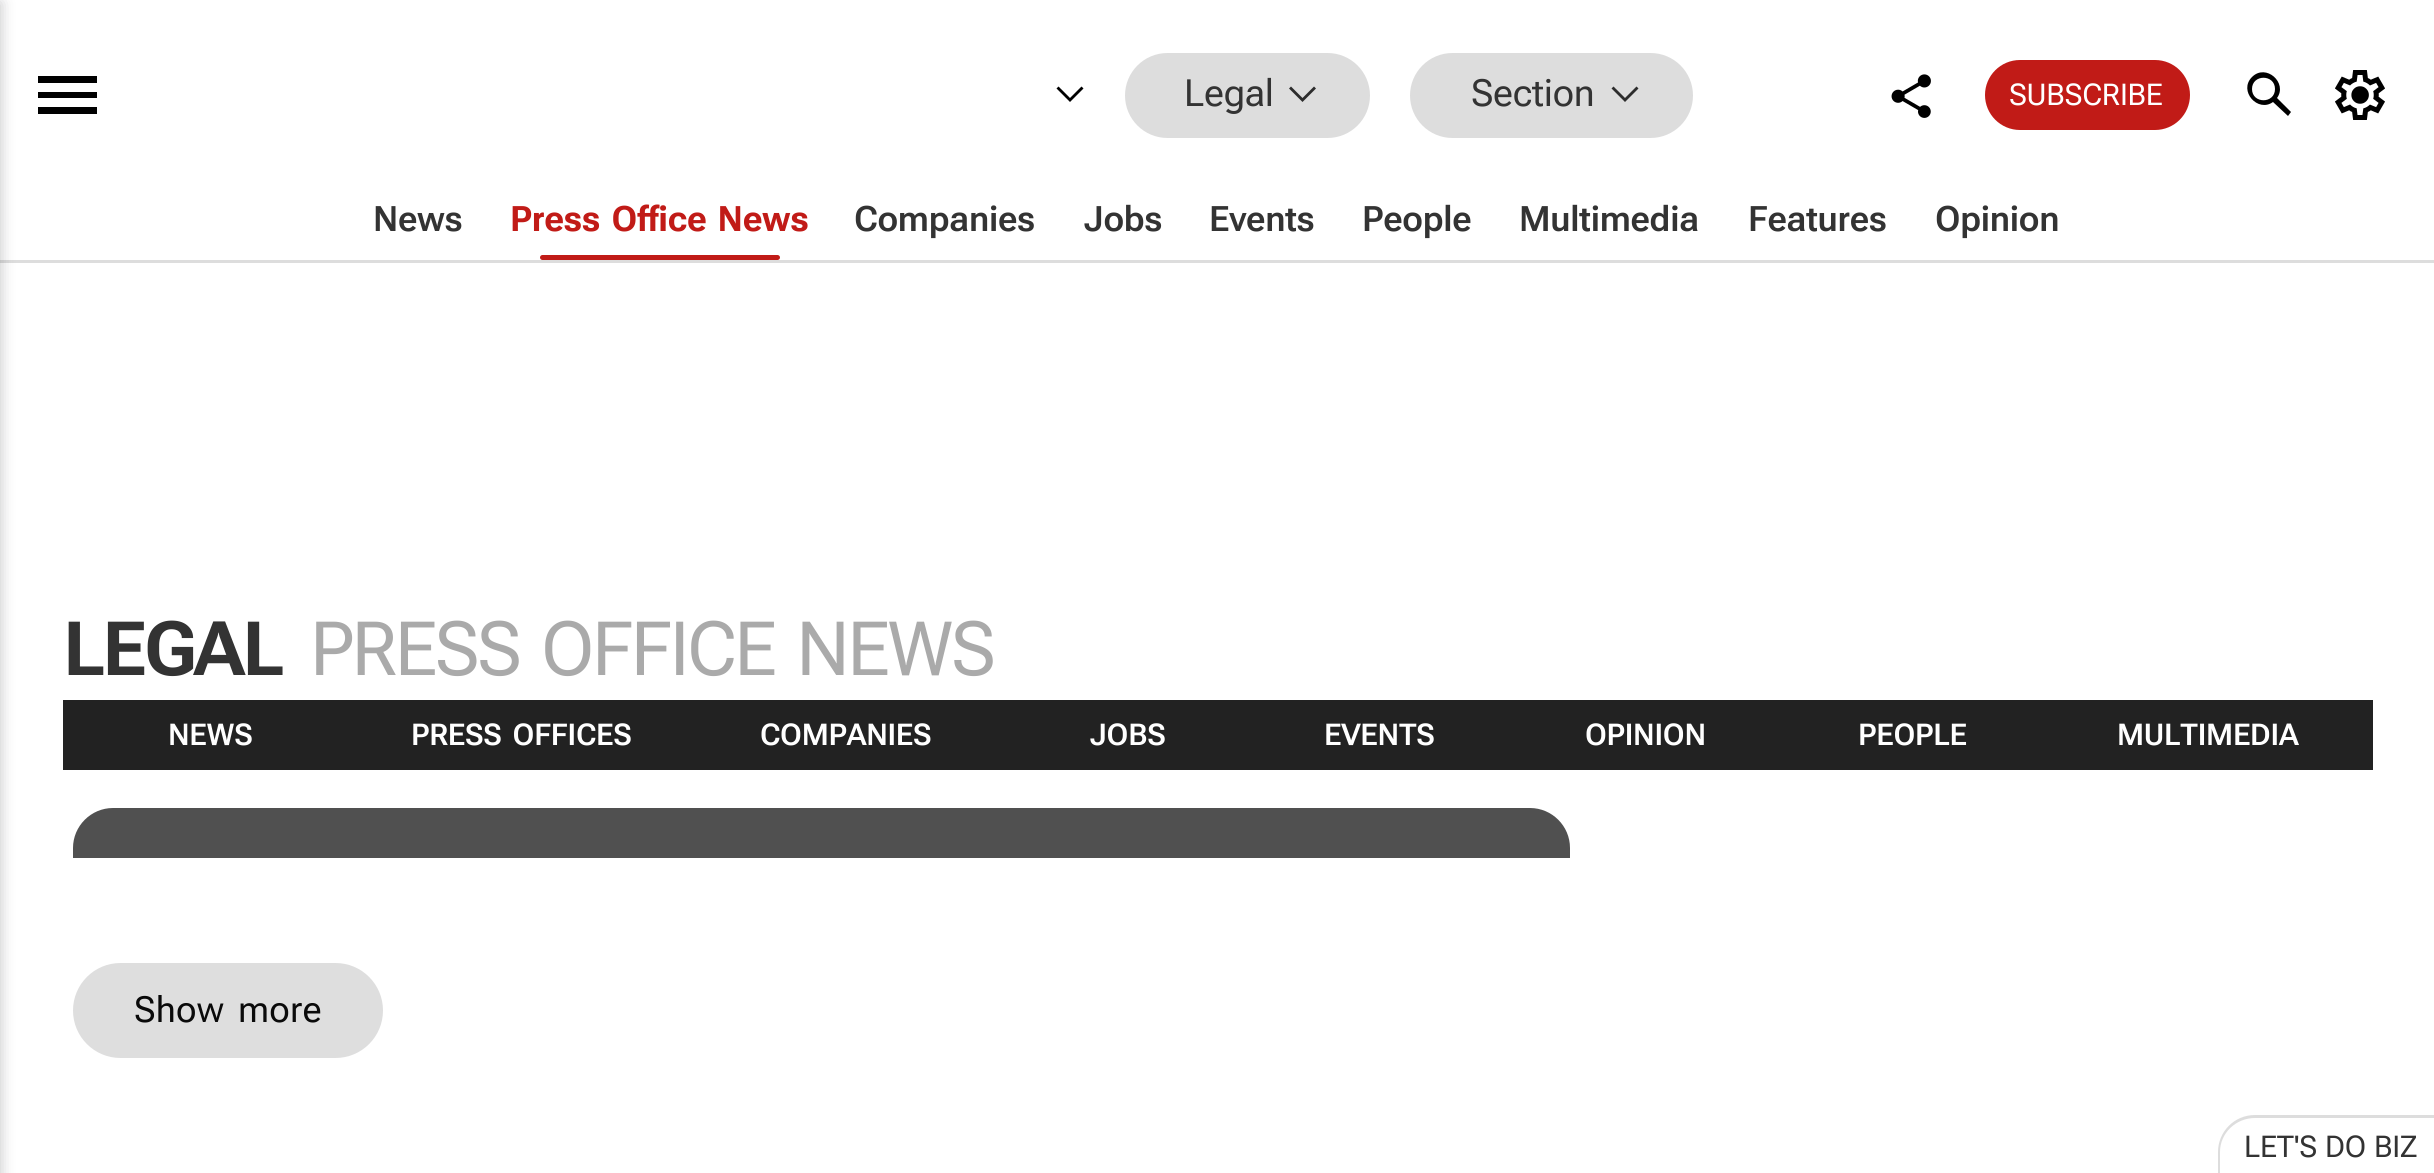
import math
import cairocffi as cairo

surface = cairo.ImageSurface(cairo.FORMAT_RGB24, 2434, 1173)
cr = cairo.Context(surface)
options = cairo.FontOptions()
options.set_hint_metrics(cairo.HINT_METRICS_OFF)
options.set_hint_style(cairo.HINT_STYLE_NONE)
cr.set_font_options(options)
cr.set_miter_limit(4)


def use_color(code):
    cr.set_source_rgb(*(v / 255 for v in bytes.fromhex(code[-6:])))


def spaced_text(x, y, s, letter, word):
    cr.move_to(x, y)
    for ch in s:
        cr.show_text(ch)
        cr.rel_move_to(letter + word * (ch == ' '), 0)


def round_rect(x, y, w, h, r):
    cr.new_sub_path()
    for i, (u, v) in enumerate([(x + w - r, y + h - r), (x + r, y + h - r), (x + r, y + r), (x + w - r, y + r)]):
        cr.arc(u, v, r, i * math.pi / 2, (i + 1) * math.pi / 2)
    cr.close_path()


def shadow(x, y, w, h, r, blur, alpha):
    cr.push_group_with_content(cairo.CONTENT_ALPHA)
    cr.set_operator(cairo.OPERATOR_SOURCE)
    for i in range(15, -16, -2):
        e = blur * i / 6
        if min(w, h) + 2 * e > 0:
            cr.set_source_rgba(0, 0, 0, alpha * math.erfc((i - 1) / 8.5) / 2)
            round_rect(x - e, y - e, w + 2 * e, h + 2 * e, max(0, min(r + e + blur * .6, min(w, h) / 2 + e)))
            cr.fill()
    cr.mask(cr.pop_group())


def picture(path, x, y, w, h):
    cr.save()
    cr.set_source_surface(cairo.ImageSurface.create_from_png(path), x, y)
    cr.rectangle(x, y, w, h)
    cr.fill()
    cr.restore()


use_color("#ffffff")
cr.paint()
use_color("#dddddd")
cr.rectangle(0, 260, 2434, 3)
cr.fill()
use_color("#202124")
shadow(-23, 3, 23, 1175, 0, 7.5, 0.28)
use_color("#000000")
cr.new_path()
cr.move_to(38, 114)
cr.line_to(38, 107)
cr.line_to(97, 107)
cr.line_to(97, 114)
cr.close_path()
cr.move_to(38, 98)
cr.line_to(38, 92)
cr.line_to(97, 92)
cr.line_to(97, 98)
cr.close_path()
cr.move_to(38, 83)
cr.line_to(38, 76)
cr.line_to(97, 76)
cr.line_to(97, 83)
cr.close_path()
cr.fill()
cr.new_path()
cr.move_to(1070, 102)
cr.line_to(1056.5, 88.5)
cr.line_to(1058.5, 86.5)
cr.line_to(1070, 98)
cr.line_to(1081.5, 86.5)
cr.line_to(1083.5, 88.5)
cr.close_path()
cr.fill()
use_color("#dddddd")
round_rect(1125, 53, 245, 85, 42.5)
cr.fill()
cr.select_font_face("Roboto Flex")
cr.set_font_size(37.5)
use_color("#333333")
spaced_text(1184, 106, "Legal", -0.25, 0)
use_color("#2c2c2c")
cr.new_path()
cr.move_to(1302.5, 102)
cr.line_to(1289, 88.5)
cr.line_to(1291, 86.5)
cr.line_to(1302.5, 98)
cr.line_to(1314, 86.5)
cr.line_to(1316, 88.5)
cr.close_path()
cr.fill()
use_color("#dddddd")
round_rect(1410, 53, 283, 85, 42.5)
cr.fill()
use_color("#333333")
spaced_text(1471, 106, "Section", -0.25, 0)
use_color("#2c2c2c")
cr.new_path()
cr.move_to(1625, 102)
cr.line_to(1611.5, 88.5)
cr.line_to(1613.5, 86.5)
cr.line_to(1625, 98)
cr.line_to(1636.5, 86.5)
cr.line_to(1638.5, 88.5)
cr.close_path()
cr.fill()
picture("img1.png", 1891, 74, 40, 44)
use_color("#c11b17")
round_rect(1985, 60, 205, 70, 35)
cr.fill()
cr.set_font_size(30)
use_color("#ffffff")
spaced_text(2009, 105, "SUBSCRIBE", -0.25, 0)
use_color("#000000")
cr.new_path()
cr.move_to(2291, 112)
cr.line_to(2277, 98)
cr.curve_to(2288, 83, 2266, 63, 2252, 77)
cr.curve_to(2238, 91, 2258, 113, 2273, 102)
cr.line_to(2288, 116)
cr.close_path()
cr.move_to(2252, 89)
cr.curve_to(2252, 74, 2275, 74, 2275, 89)
cr.curve_to(2275, 104, 2252, 104, 2252, 89)
cr.close_path()
cr.fill()
picture("img2.png", 2335, 70, 50, 50)
cr.select_font_face("Roboto Flex SemiBold")
cr.set_font_size(35)
use_color("#333333")
spaced_text(373, 231, "News", -0.25, 0)
cr.select_font_face("Roboto Flex", cairo.FONT_SLANT_NORMAL, cairo.FONT_WEIGHT_BOLD)
use_color("#c11b17")
spaced_text(510, 231, "Press Office News", -0.25, 3)
round_rect(540, 255, 240, 5, 2.5)
cr.fill()
cr.select_font_face("Roboto Flex SemiBold")
use_color("#333333")
spaced_text(854, 231, "Companies", -0.25, 0)
spaced_text(1084, 231, "Jobs", -0.25, 0)
spaced_text(1209, 231, "Events", -0.25, 0)
spaced_text(1362, 231, "People", -0.25, 0)
spaced_text(1519, 231, "Multimedia", -0.25, 0)
spaced_text(1748, 231, "Features", -0.25, 0)
spaced_text(1935, 231, "Opinion", -0.25, 0)
cr.select_font_face("Roboto Flex", cairo.FONT_SLANT_NORMAL, cairo.FONT_WEIGHT_BOLD)
cr.set_font_size(75)
spaced_text(63, 675, "LEGAL", -2.5, 0)
cr.select_font_face("Roboto Flex")
use_color("#aaaaaa")
spaced_text(310, 675, "PRESS OFFICE NEWS", -2.5, 6)
use_color("#222222")
cr.rectangle(63, 700, 2310, 70)
cr.fill()
cr.select_font_face("Roboto Flex SemiBold")
cr.set_font_size(30)
use_color("#ffffff")
spaced_text(168, 745, "NEWS", -0.25, 0)
spaced_text(411, 745, "PRESS OFFICES", -0.25, 4)
spaced_text(760, 745, "COMPANIES", -0.25, 0)
spaced_text(1090, 745, "JOBS", -0.25, 0)
spaced_text(1324, 745, "EVENTS", -0.25, 0)
spaced_text(1585, 745, "OPINION", -0.25, 0)
spaced_text(1858, 745, "PEOPLE", -0.25, 0)
spaced_text(2117, 745, "MULTIMEDIA", -0.25, 0)
use_color("#505050")
cr.new_path()
cr.move_to(113, 808)
cr.line_to(1530, 808)
cr.curve_to(1552, 808, 1570, 826, 1570, 848)
cr.line_to(1570, 858)
cr.line_to(73, 858)
cr.line_to(73, 848)
cr.curve_to(73, 826, 91, 808, 113, 808)
cr.close_path()
cr.fill()
use_color("#dedede")
round_rect(73, 963, 310, 95, 47.5)
cr.fill()
cr.select_font_face("Roboto Flex")
cr.set_font_size(36)
use_color("#0a0a0a")
spaced_text(134, 1022, "Show more", 0.25, 5)
use_color("#dddddd")
cr.set_fill_rule(cairo.FILL_RULE_EVEN_ODD)
cr.new_path()
cr.move_to(2255, 1115)
cr.line_to(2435, 1115)
cr.line_to(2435, 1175)
cr.line_to(2218, 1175)
cr.line_to(2218, 1152)
cr.curve_to(2218, 1132, 2234, 1115, 2255, 1115)
cr.close_path()
cr.move_to(2255, 1118)
cr.line_to(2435, 1118)
cr.line_to(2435, 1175)
cr.line_to(2220, 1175)
cr.line_to(2220, 1152)
cr.curve_to(2220, 1133, 2236, 1118, 2255, 1118)
cr.close_path()
cr.fill()
cr.set_font_size(30)
use_color("#333333")
spaced_text(2244, 1157, "LET'S DO BIZ", -0.25, 1)
surface.write_to_png("result.png")
